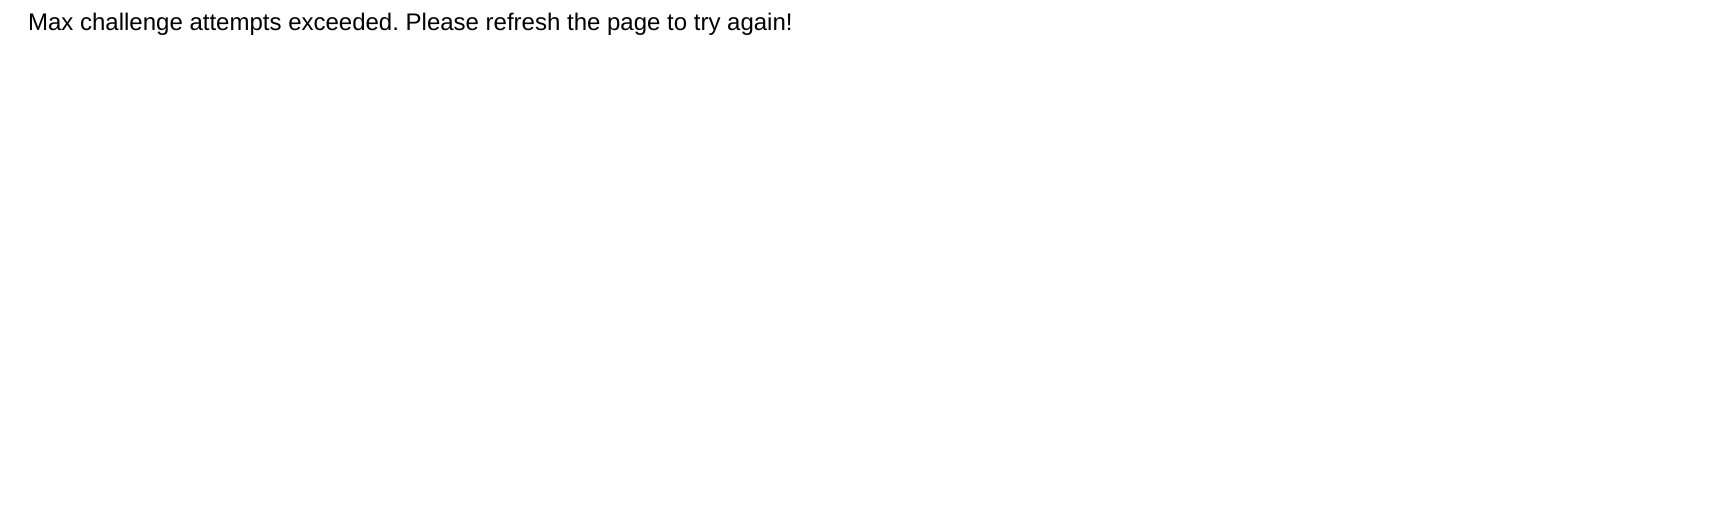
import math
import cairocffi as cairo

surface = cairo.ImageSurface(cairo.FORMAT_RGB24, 1712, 530)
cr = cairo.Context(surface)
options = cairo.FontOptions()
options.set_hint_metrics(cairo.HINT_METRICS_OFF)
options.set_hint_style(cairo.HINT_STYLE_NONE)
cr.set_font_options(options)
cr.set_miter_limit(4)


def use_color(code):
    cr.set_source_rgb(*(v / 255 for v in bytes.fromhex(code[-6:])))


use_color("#ffffff")
cr.paint()
cr.select_font_face("Liberation Sans")
cr.set_font_size(24)
use_color("#000000")
cr.move_to(28, 30)
cr.show_text("Max challenge attempts exceeded. Please refresh the page to try again!")
surface.write_to_png("result.png")
